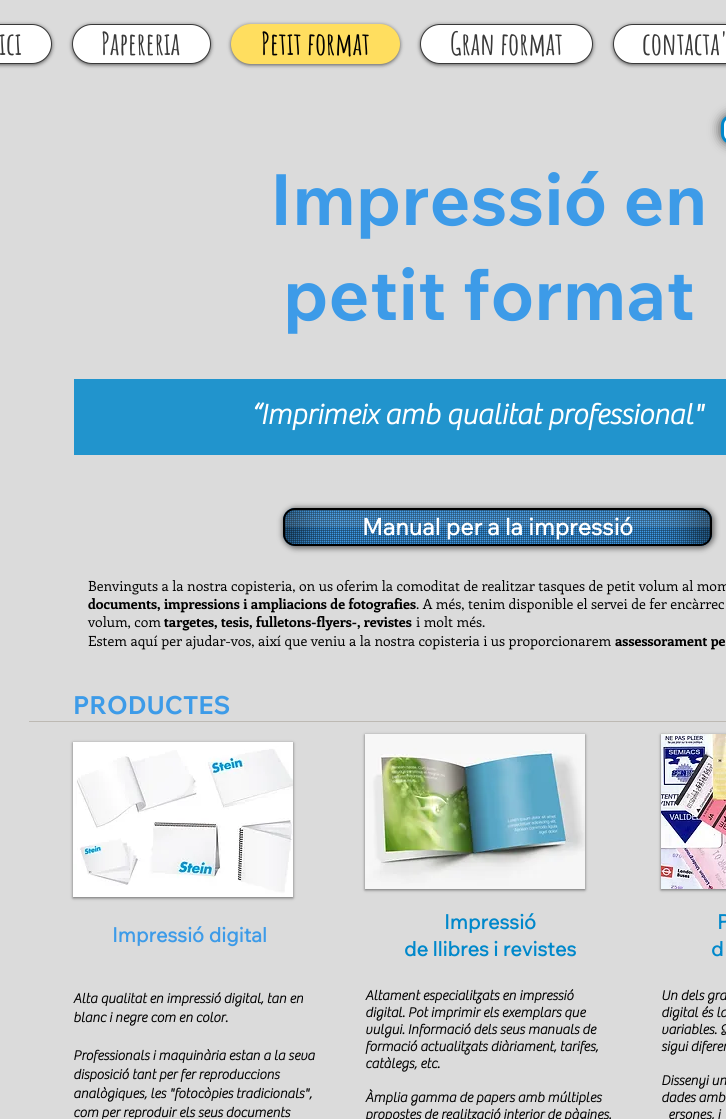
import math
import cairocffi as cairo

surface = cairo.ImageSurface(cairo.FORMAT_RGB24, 726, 1119)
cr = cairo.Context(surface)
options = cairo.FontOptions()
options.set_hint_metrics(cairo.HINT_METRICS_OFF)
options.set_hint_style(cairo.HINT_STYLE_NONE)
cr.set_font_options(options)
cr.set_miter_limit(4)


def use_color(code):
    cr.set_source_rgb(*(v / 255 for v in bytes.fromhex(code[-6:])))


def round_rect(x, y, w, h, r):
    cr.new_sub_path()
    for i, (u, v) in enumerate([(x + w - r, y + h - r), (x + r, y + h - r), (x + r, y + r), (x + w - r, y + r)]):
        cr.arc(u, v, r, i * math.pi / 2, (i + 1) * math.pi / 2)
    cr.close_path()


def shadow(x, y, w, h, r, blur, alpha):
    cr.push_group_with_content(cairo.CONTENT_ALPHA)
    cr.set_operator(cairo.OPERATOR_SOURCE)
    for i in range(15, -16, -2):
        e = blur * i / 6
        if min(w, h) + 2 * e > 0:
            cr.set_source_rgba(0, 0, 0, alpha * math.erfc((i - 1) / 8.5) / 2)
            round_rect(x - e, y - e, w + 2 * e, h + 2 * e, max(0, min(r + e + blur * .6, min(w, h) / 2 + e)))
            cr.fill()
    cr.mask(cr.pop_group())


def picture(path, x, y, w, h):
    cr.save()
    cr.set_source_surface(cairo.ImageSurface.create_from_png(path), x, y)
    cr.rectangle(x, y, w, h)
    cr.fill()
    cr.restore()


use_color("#dbdbdb")
cr.paint()
use_color("#000000")
shadow(-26, 25, 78, 40, 20, 2, 0.6)
use_color("#ffffff")
round_rect(-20.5, 24.5, 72, 39, 19.5)
cr.fill_preserve()
use_color("#383838")
cr.set_line_width(1)
cr.stroke()
cr.select_font_face("Amatic SC", cairo.FONT_SLANT_NORMAL, cairo.FONT_WEIGHT_BOLD)
cr.set_font_size(31)
cr.move_to(-1, 55)
cr.show_text("ici")
use_color("#000000")
shadow(72, 25, 139, 40, 20, 2, 0.6)
use_color("#ffffff")
round_rect(72.5, 24.5, 138, 39, 19.5)
cr.fill_preserve()
use_color("#383838")
cr.stroke()
cr.move_to(101, 55)
cr.show_text("Papereria")
use_color("#000000")
shadow(231, 25, 169, 40, 20, 2, 0.6)
use_color("#ffde5f")
round_rect(231, 24, 169, 40, 20)
cr.fill()
use_color("#000000")
cr.move_to(261, 55)
cr.show_text("Petit format")
use_color("#000000")
shadow(420, 25, 173, 40, 20, 2, 0.6)
use_color("#ffffff")
round_rect(420.5, 24.5, 172, 39, 19.5)
cr.fill_preserve()
use_color("#383838")
cr.stroke()
cr.move_to(450, 55)
cr.show_text("Gran format")
use_color("#000000")
shadow(613, 25, 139, 40, 20, 2, 0.6)
use_color("#ffffff")
round_rect(613.5, 24.5, 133, 39, 19.5)
cr.fill_preserve()
use_color("#383838")
cr.stroke()
cr.move_to(642, 55)
cr.show_text("contacta'")
use_color("#000000")
shadow(721, 115, 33, 29, 10, 6, 0.73)
use_color("#ffffff")
round_rect(722.5, 116.5, 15, 26, 8.5)
cr.fill_preserve()
use_color("#0088cb")
cr.set_line_width(3)
cr.stroke()
cr.select_font_face("Wix Madefor Text", cairo.FONT_SLANT_NORMAL, cairo.FONT_WEIGHT_BOLD)
cr.set_font_size(71)
use_color("#3d9be8")
cr.move_to(270, 225)
cr.show_text("Impressió en")
cr.move_to(283, 320)
cr.show_text("petit format")
use_color("#2194cd")
cr.rectangle(74, 379, 652, 76)
cr.fill()
cr.select_font_face("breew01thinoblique", cairo.FONT_SLANT_NORMAL, cairo.FONT_WEIGHT_BOLD)
cr.set_font_size(29)
use_color("#ffffff")
cr.move_to(251, 424)
cr.show_text("“Imprimeix amb qualitat professional\"")
use_color("#ffffff")
shadow(284, 509, 429, 38, 12, 1.5, 0.3)
use_color("#000000")
shadow(283, 508, 431, 40, 13, 3, 0.6)
use_color("#3d9be9")
round_rect(283, 508, 429, 38, 12)
cr.fill()
picture("img1.png", 283, 508, 429, 38)
round_rect(284, 509, 427, 36, 11)
use_color("#000000")
cr.set_line_width(2)
cr.stroke()
picture("img2.png", 285, 510, 50, 34)
cr.select_font_face("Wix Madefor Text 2", cairo.FONT_SLANT_NORMAL, cairo.FONT_WEIGHT_BOLD)
cr.set_font_size(23)
use_color("#ffffff")
cr.move_to(362, 535)
cr.show_text("Manual per a la impressió")
picture("img4.png", 660, 510, 50, 34)
picture("img3.png", 285, 510, 425, 17)
cr.select_font_face("Enriqueta")
cr.set_font_size(14)
use_color("#000000")
cr.move_to(88, 591)
cr.show_text("Benvinguts a la nostra copisteria, on us oferim la comoditat de realitzar tasques de petit volum al mom")
cr.select_font_face("Enriqueta", cairo.FONT_SLANT_NORMAL, cairo.FONT_WEIGHT_BOLD)
cr.move_to(88, 609)
cr.show_text("documents, impressions i ampliacions de fotografies")
cr.select_font_face("Enriqueta")
cr.move_to(416, 609)
cr.show_text(". A més, tenim disponible el servei de fer encàrrec")
cr.move_to(88, 627)
cr.show_text("volum, com")
cr.select_font_face("Enriqueta", cairo.FONT_SLANT_NORMAL, cairo.FONT_WEIGHT_BOLD)
cr.move_to(164, 627)
cr.show_text("targetes, tesis, fulletons-flyers-, revistes")
cr.select_font_face("Enriqueta")
cr.move_to(416, 627)
cr.show_text("i molt més.")
cr.move_to(88, 646)
cr.show_text("Estem aquí per ajudar-vos, així que veniu a la nostra copisteria i us proporcionarem")
cr.select_font_face("Enriqueta", cairo.FONT_SLANT_NORMAL, cairo.FONT_WEIGHT_BOLD)
cr.move_to(615, 646)
cr.show_text("assessorament pe")
cr.select_font_face("Wix Madefor Text", cairo.FONT_SLANT_NORMAL, cairo.FONT_WEIGHT_BOLD)
cr.set_font_size(25)
use_color("#3d9be8")
cr.move_to(73, 714)
cr.show_text("PRODUCTES")
use_color("#bdb9b3")
cr.rectangle(29, 721, 697, 1)
cr.fill()
use_color("#000000")
shadow(73, 743, 220, 155, 0, 1.5, 0.5)
picture("img5.png", 73, 742, 220, 155)
shadow(365, 735, 220, 155, 0, 1.5, 0.5)
picture("img6.png", 365, 734, 220, 155)
shadow(661, 735, 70, 155, 0, 1.5, 0.5)
picture("img7.png", 661, 734, 65, 155)
cr.select_font_face("Wix Madefor Text 2", cairo.FONT_SLANT_NORMAL, cairo.FONT_WEIGHT_BOLD)
cr.set_font_size(20)
use_color("#3d9be8")
cr.move_to(112, 942)
cr.show_text("Impressió digital")
use_color("#0088cb")
cr.move_to(444, 929)
cr.show_text("Impressió")
cr.move_to(404, 956)
cr.show_text("de llibres i revistes")
cr.move_to(717, 929)
cr.show_text("P")
cr.move_to(711, 956)
cr.show_text("d")
cr.select_font_face("breew01thinoblique", cairo.FONT_SLANT_NORMAL, cairo.FONT_WEIGHT_BOLD)
cr.set_font_size(14)
use_color("#000000")
cr.move_to(73, 1003)
cr.show_text("Alta qualitat en impressió digital, tan en")
cr.move_to(73, 1022)
cr.show_text("blanc i negre com en color.")
cr.move_to(73, 1060)
cr.show_text("Professionals i maquinària estan a la seva")
cr.move_to(73, 1079)
cr.show_text("disposició tant per fer reproduccions")
cr.move_to(73, 1098)
cr.show_text("analògiques, les \"fotocòpies tradicionals\",")
cr.move_to(73, 1117)
cr.show_text("com per reproduir els seus documents")
cr.move_to(365, 1000)
cr.show_text("Altament especialitzats en impressió")
cr.move_to(365, 1017)
cr.show_text("digital. Pot imprimir els exemplars que")
cr.move_to(365, 1034)
cr.show_text("vulgui. Informació dels seus manuals de")
cr.move_to(365, 1051)
cr.show_text("formació actualitzats diàriament, tarifes,")
cr.move_to(365, 1068)
cr.show_text("catàlegs, etc.")
cr.move_to(365, 1102)
cr.show_text("Àmplia gamma de papers amb múltiples")
cr.move_to(365, 1119)
cr.show_text("propostes de realització interior de pàgines.")
cr.move_to(661, 1000)
cr.show_text("Un dels gra")
cr.move_to(661, 1017)
cr.show_text("digital és la")
cr.move_to(661, 1034)
cr.show_text("variables. Q")
cr.move_to(661, 1051)
cr.show_text("sigui diferen")
cr.move_to(661, 1085)
cr.show_text("Dissenyi un")
cr.move_to(661, 1102)
cr.show_text("dades amb")
cr.move_to(668, 1119)
cr.show_text("ersones, i")
surface.write_to_png("result.png")
